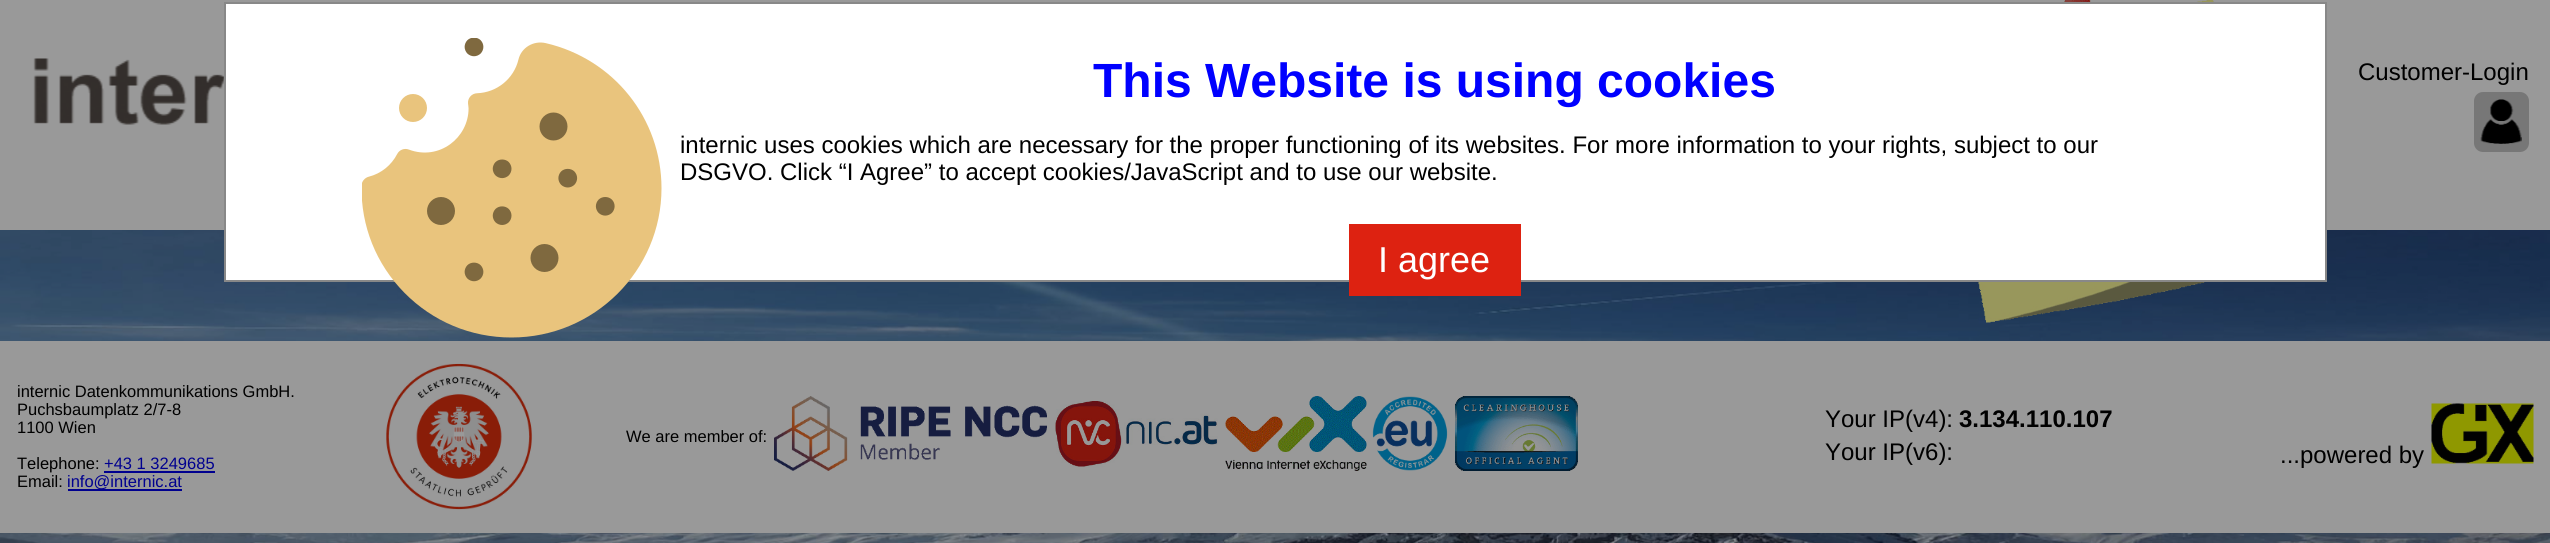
import math
import cairocffi as cairo

surface = cairo.ImageSurface(cairo.FORMAT_RGB24, 2550, 543)
cr = cairo.Context(surface)
options = cairo.FontOptions()
options.set_hint_metrics(cairo.HINT_METRICS_OFF)
options.set_hint_style(cairo.HINT_STYLE_NONE)
cr.set_font_options(options)
cr.set_miter_limit(4)


def use_color(code):
    cr.set_source_rgb(*(v / 255 for v in bytes.fromhex(code[-6:])))


def round_rect(x, y, w, h, r):
    cr.new_sub_path()
    for i, (u, v) in enumerate([(x + w - r, y + h - r), (x + r, y + h - r), (x + r, y + r), (x + w - r, y + r)]):
        cr.arc(u, v, r, i * math.pi / 2, (i + 1) * math.pi / 2)
    cr.close_path()


def picture(path, x, y, w, h):
    cr.save()
    cr.set_source_surface(cairo.ImageSurface.create_from_png(path), x, y)
    cr.rectangle(x, y, w, h)
    cr.fill()
    cr.restore()


use_color("#999999")
cr.paint()
picture("img5.png", 0, 230, 2550, 313)
picture("img1.png", 1978, 0, 236, 323)
use_color("#ffffff")
cr.rectangle(225, 3, 2101, 278)
cr.fill_preserve()
use_color("#888888")
cr.stroke()
picture("img2.png", 362, 38, 300, 300)
cr.select_font_face("Liberation Sans", cairo.FONT_SLANT_NORMAL, cairo.FONT_WEIGHT_BOLD)
cr.set_font_size(48)
use_color("#0000ff")
cr.move_to(1093, 97)
cr.show_text("This Website is using cookies")
cr.select_font_face("Liberation Sans")
cr.set_font_size(24)
use_color("#000000")
cr.move_to(680, 153)
cr.show_text("internic uses cookies which are necessary for the proper functioning of its websites. For more information to your rights, subject to our")
cr.move_to(680, 180)
cr.show_text("DSGVO. Click “I Agree” to accept cookies/JavaScript and to use our website.")
use_color("#dd2211")
cr.rectangle(1349, 224, 172, 72)
cr.fill()
cr.set_font_size(36)
use_color("#ffffff")
cr.move_to(1378, 272)
cr.show_text("I agree")
picture("img3.png", 33, 58, 191, 67)
cr.set_font_size(24)
use_color("#000000")
cr.move_to(2358, 80)
cr.show_text("Customer-Login")
use_color("#777777")
round_rect(2474, 92, 55, 60, 9)
cr.fill()
picture("img4.png", 2480, 99, 42, 45)
use_color("#999999")
cr.rectangle(0, 341, 2550, 192)
cr.fill()
cr.set_font_size(16.5)
use_color("#000000")
cr.move_to(17, 397)
cr.show_text("internic Datenkommunikations GmbH.")
cr.move_to(17, 415)
cr.show_text("Puchsbaumplatz 2/7-8")
cr.move_to(17, 433)
cr.show_text("1100 Wien")
cr.move_to(17, 469)
cr.show_text("Telephone:")
use_color("#00008f")
cr.move_to(104, 469)
cr.show_text("+43 1 3249685")
cr.rectangle(104, 471, 111, 2)
cr.fill()
use_color("#000000")
cr.move_to(17, 487)
cr.show_text("Email:")
use_color("#00008f")
cr.rectangle(68, 489, 114, 2)
cr.fill()
cr.move_to(67, 487)
cr.show_text("info@internic.at")
picture("img6.png", 386, 363, 147, 147)
use_color("#000000")
cr.move_to(626, 442)
cr.show_text("We are member of:")
picture("img7.png", 774, 396, 273, 75)
picture("img8.png", 1055, 401, 163, 67)
picture("img9.png", 1225, 396, 142, 75)
picture("img10.png", 1372, 396, 76, 75)
picture("img11.png", 1455, 396, 123, 75)
cr.set_font_size(24)
cr.move_to(1825, 427)
cr.show_text("Your IP(v4):")
cr.select_font_face("Liberation Sans", cairo.FONT_SLANT_NORMAL, cairo.FONT_WEIGHT_BOLD)
cr.move_to(1959, 427)
cr.show_text("3.134.110.107")
cr.select_font_face("Liberation Sans")
cr.move_to(1825, 460)
cr.show_text("Your IP(v6):")
cr.move_to(2280, 463)
cr.show_text("...powered by")
picture("img12.png", 2431, 403, 103, 61)
surface.write_to_png("result.png")
